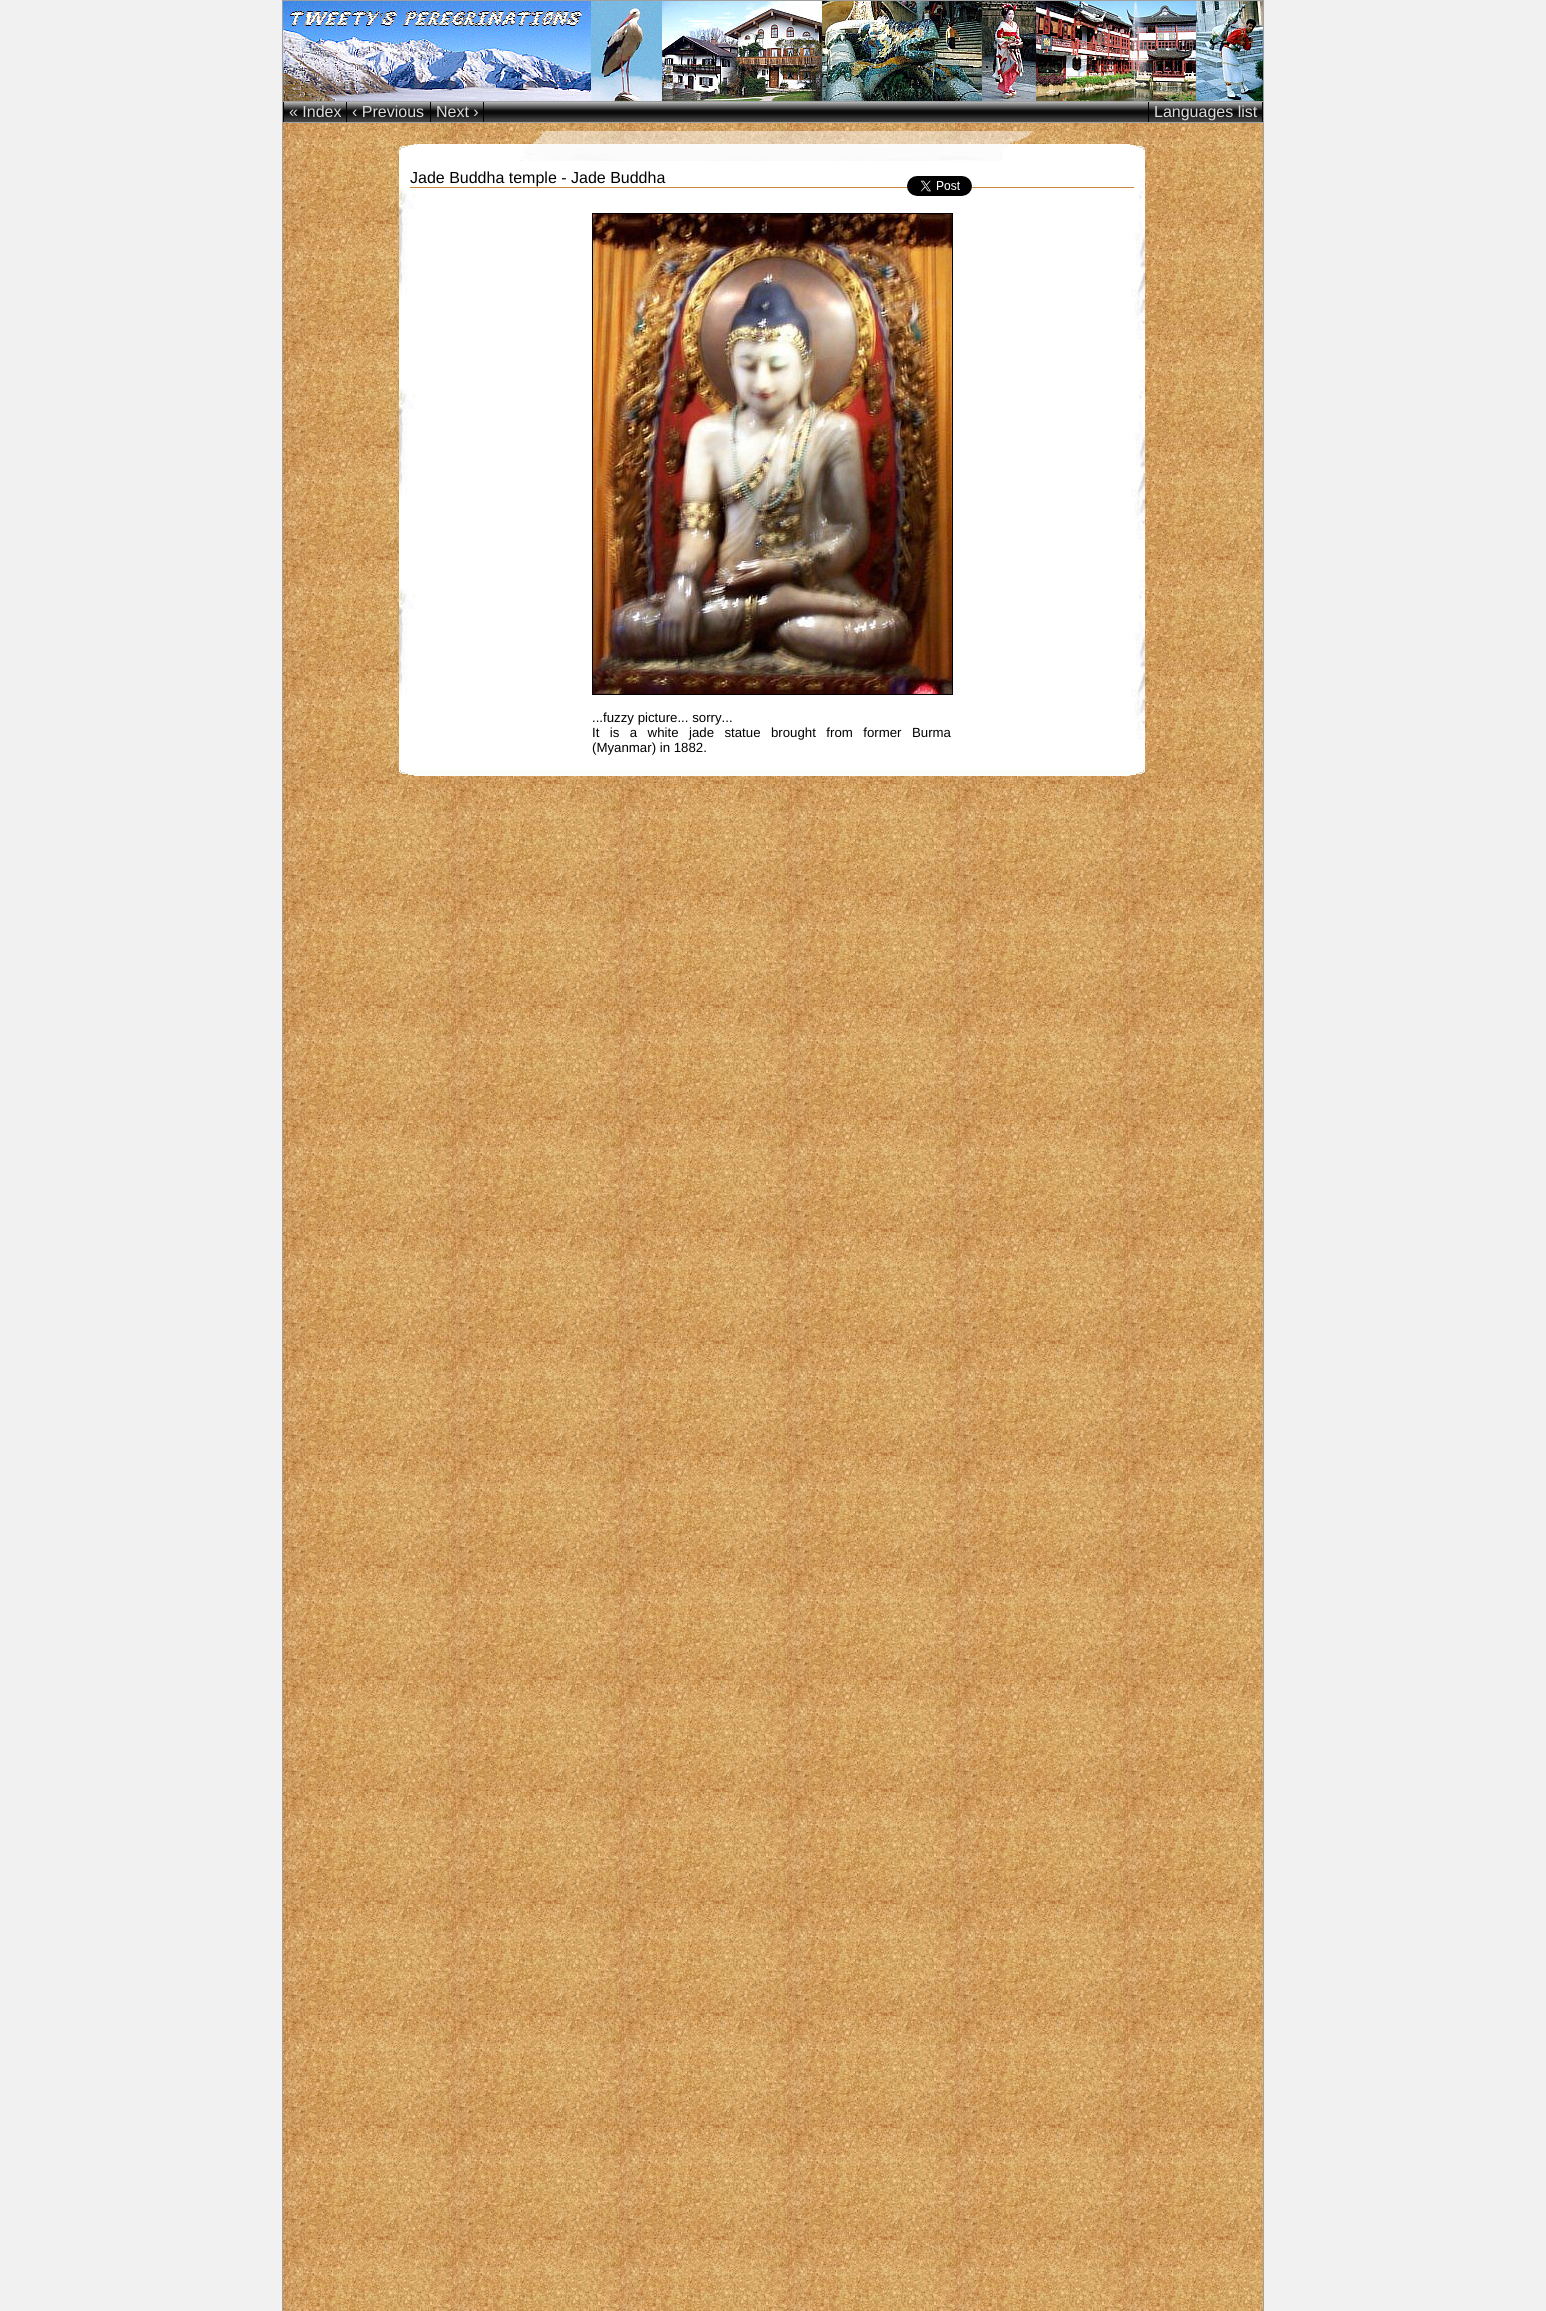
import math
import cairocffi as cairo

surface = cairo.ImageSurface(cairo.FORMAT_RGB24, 1546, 2311)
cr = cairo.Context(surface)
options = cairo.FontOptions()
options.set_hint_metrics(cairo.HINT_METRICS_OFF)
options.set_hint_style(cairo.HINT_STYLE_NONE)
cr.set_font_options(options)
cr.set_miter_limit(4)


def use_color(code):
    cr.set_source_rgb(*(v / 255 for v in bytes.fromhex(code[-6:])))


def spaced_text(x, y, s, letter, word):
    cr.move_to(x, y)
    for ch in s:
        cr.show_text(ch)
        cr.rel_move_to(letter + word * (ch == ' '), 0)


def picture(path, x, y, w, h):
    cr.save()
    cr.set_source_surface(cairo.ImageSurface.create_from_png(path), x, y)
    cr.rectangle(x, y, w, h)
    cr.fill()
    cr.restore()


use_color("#f1f1f1")
cr.paint()
picture("img1.png", 283, 123, 980, 2188)
use_color("#a0a0a0")
cr.rectangle(1263, 0, 1, 2311)
cr.fill()
cr.rectangle(282, 0, 1, 2311)
cr.fill()
cr.rectangle(283, 0, 980, 1)
cr.fill()
picture("img2.png", 283, 1, 980, 100)
picture("img3.png", 290, 11, 292, 15)
cr.rectangle(283, 101, 980, 1)
cr.fill()
picture("img4.png", 484, 102, 664, 20)
use_color("#000000")
cr.rectangle(346, 102, 1, 20)
cr.fill()
cr.rectangle(283, 102, 1, 20)
cr.fill()
picture("img5.png", 284, 102, 62, 20)
cr.select_font_face("Liberation Sans")
cr.set_font_size(16)
use_color("#dcdcdc")
cr.move_to(289, 117)
cr.show_text("« Index")
use_color("#000000")
cr.rectangle(430, 102, 1, 20)
cr.fill()
picture("img6.png", 347, 102, 83, 20)
use_color("#dcdcdc")
cr.move_to(352, 117)
cr.show_text("‹ Previous")
use_color("#000000")
cr.rectangle(483, 102, 1, 20)
cr.fill()
picture("img7.png", 431, 102, 52, 20)
use_color("#dcdcdc")
cr.move_to(436, 117)
cr.show_text("Next ›")
use_color("#000000")
cr.rectangle(1262, 102, 1, 20)
cr.fill()
cr.rectangle(1148, 102, 1, 20)
cr.fill()
picture("img8.png", 1149, 102, 113, 20)
use_color("#dcdcdc")
cr.move_to(1154, 117)
cr.show_text("Languages list")
use_color("#a0a0a0")
cr.rectangle(283, 122, 980, 1)
cr.fill()
picture("img9.png", 399, 131, 746, 30)
picture("img10.png", 399, 161, 746, 609)
use_color("#cd853f")
cr.rectangle(410, 187, 724, 1)
cr.fill()
use_color("#000000")
cr.move_to(410, 183)
cr.show_text("Jade Buddha temple - Jade Buddha")
cr.rectangle(592.5, 213.5, 360, 481)
cr.set_line_width(1)
cr.stroke()
picture("img11.png", 593, 214, 359, 480)
cr.set_font_size(13.25)
cr.move_to(592, 722)
cr.show_text("...fuzzy picture... sorry...")
spaced_text(592, 737, "It is a white jade statue brought from former Burma", 0, 6.75)
cr.move_to(592, 752)
cr.show_text("(Myanmar) in 1882.")
picture("img12.png", 399, 770, 746, 6)
picture("img13.png", 907, 176, 65, 20)
surface.write_to_png("result.png")
